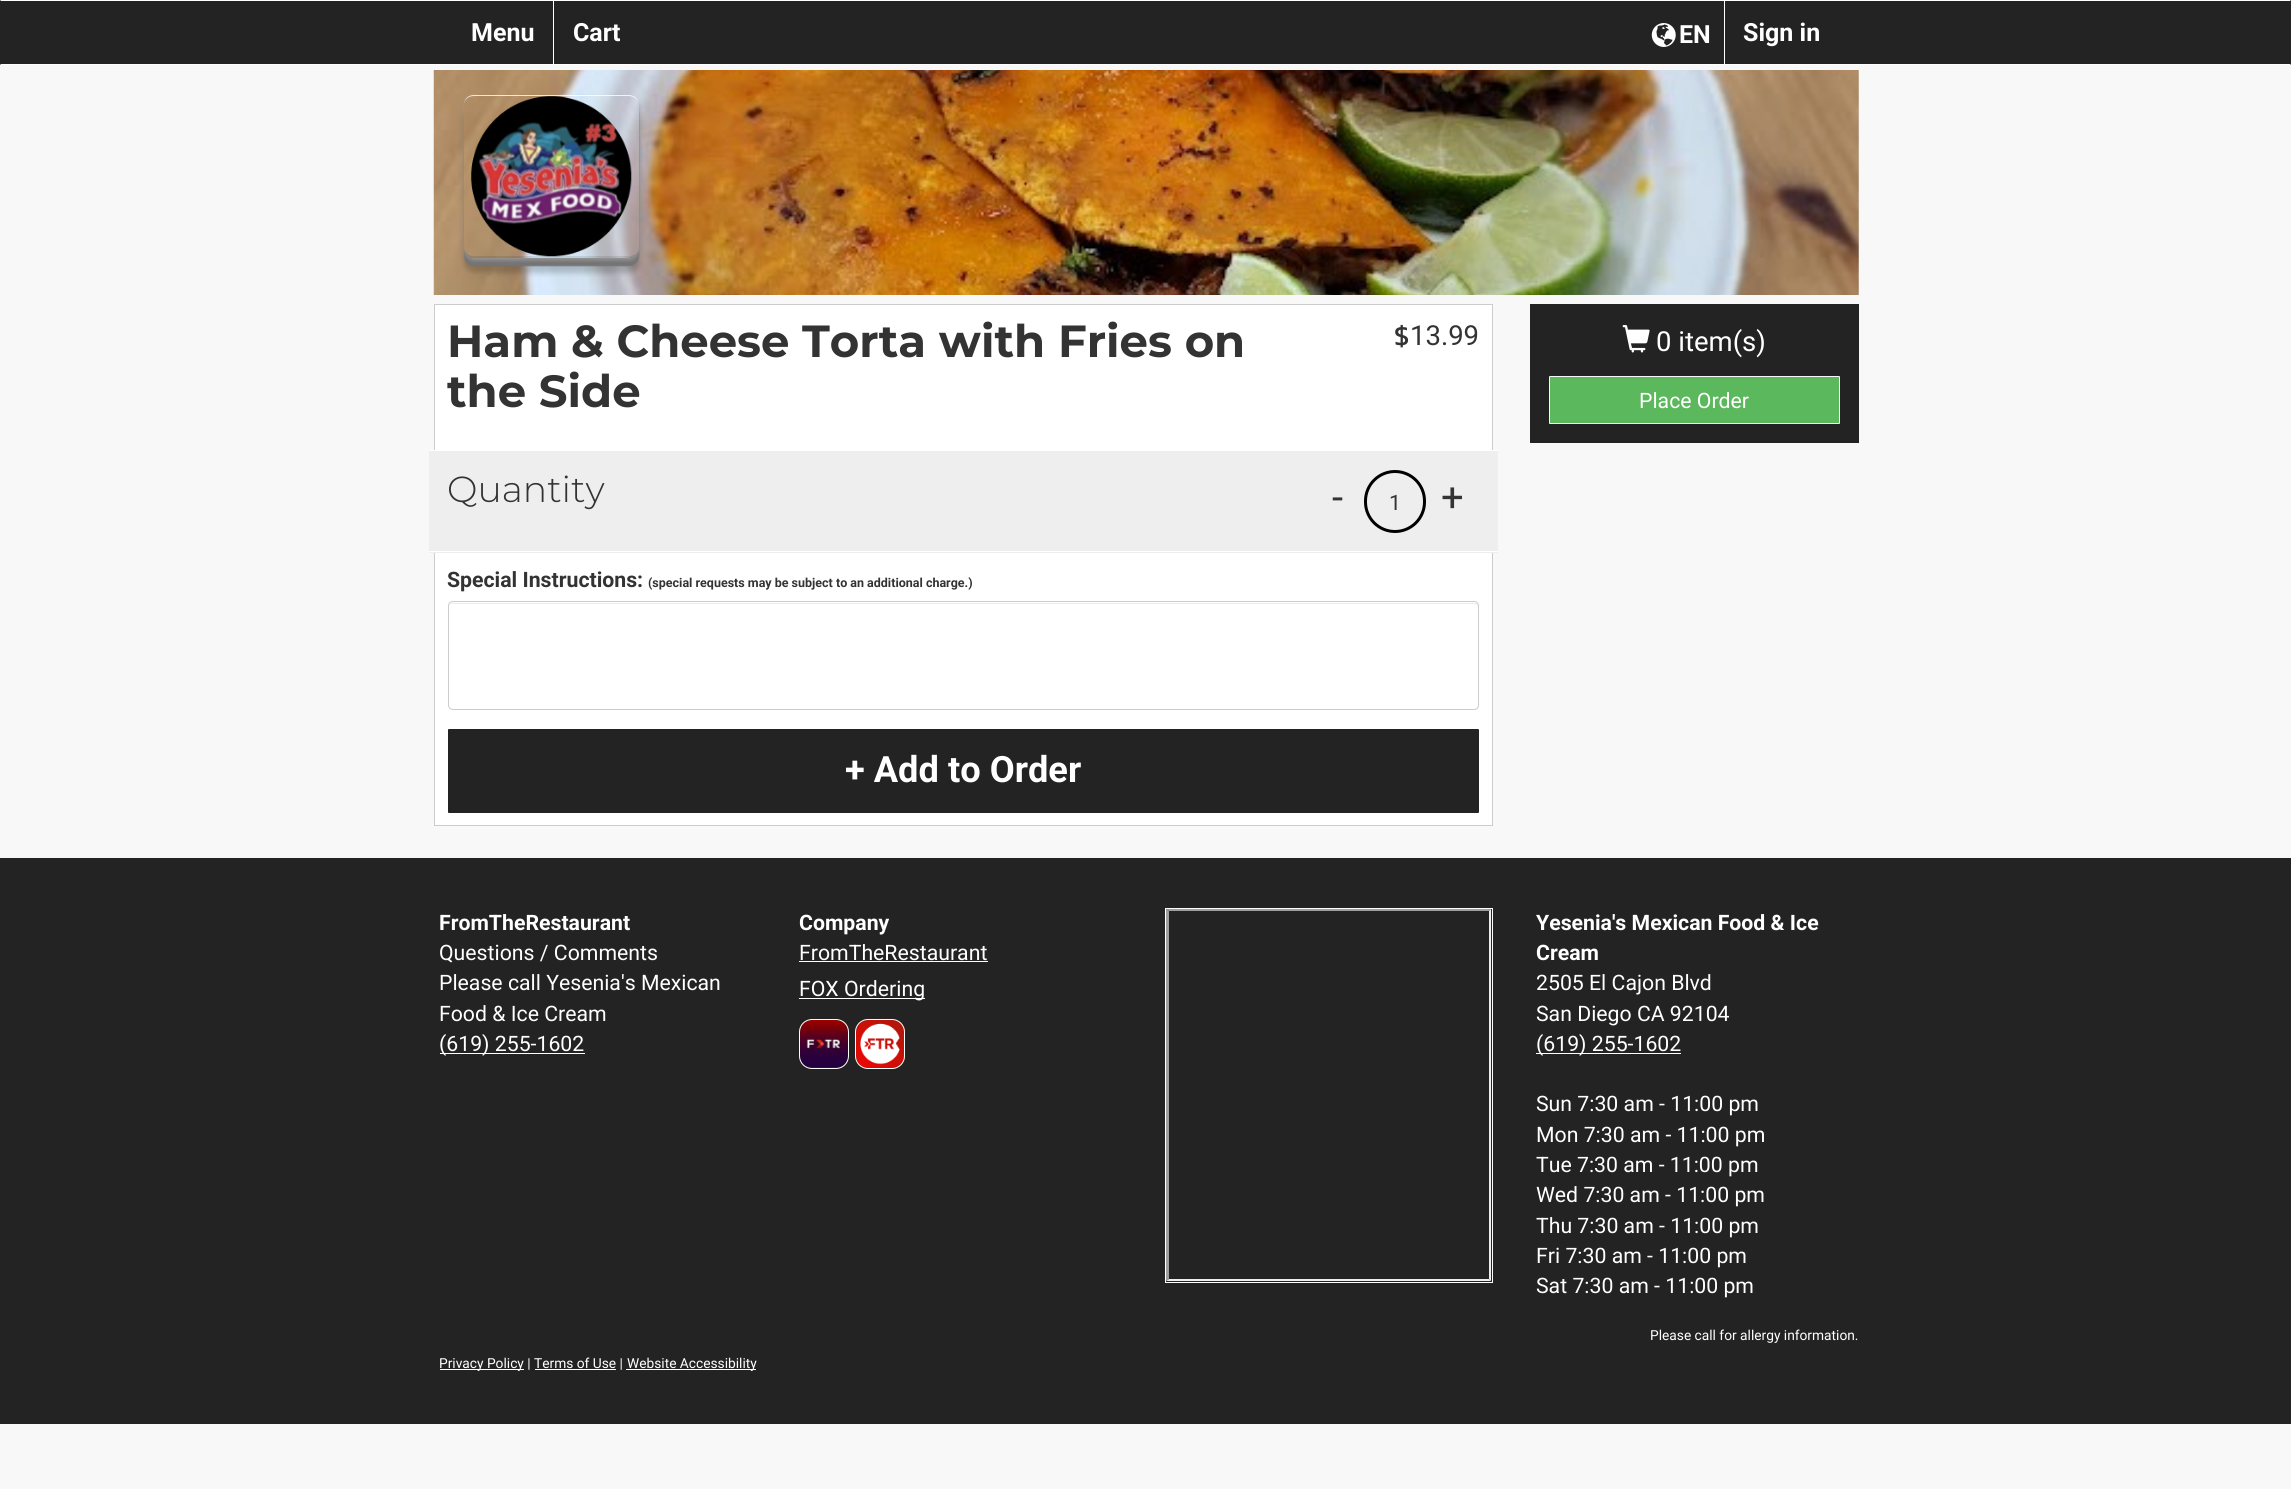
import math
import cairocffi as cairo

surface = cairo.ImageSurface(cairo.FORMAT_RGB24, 2291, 1489)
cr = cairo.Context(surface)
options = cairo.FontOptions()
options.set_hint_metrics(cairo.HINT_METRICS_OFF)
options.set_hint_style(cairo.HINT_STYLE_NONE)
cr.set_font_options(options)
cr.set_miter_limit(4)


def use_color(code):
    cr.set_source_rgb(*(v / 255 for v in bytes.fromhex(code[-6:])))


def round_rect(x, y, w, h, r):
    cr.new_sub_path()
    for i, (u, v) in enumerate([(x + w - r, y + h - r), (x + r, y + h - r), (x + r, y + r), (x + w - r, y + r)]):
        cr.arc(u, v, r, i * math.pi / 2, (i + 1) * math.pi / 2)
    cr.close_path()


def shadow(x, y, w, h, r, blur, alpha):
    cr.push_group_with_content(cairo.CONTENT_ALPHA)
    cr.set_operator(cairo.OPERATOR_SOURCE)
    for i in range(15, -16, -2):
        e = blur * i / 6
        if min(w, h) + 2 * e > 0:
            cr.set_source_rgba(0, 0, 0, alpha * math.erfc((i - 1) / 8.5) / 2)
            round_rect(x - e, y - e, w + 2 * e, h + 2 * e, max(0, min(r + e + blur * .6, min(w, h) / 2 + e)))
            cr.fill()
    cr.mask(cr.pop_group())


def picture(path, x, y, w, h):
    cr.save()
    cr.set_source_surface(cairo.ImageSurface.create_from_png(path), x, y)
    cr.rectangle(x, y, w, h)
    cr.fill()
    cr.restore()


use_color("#f8f8f8")
cr.paint()
use_color("#232323")
cr.rectangle(0, 0, 2291, 65)
cr.fill()
use_color("#ffffff")
cr.new_path()
cr.move_to(0, 0)
cr.line_to(2291, 0)
cr.line_to(2290, 1)
cr.line_to(1, 1)
cr.close_path()
cr.fill()
cr.new_path()
cr.move_to(2291, 65)
cr.line_to(0, 65)
cr.line_to(1, 64)
cr.line_to(2290, 64)
cr.close_path()
cr.fill()
cr.rectangle(553, 1, 1, 63)
cr.fill()
cr.select_font_face("Roboto", cairo.FONT_SLANT_NORMAL, cairo.FONT_WEIGHT_BOLD)
cr.set_font_size(25)
cr.move_to(471, 41)
cr.show_text("Menu")
cr.move_to(573, 41)
cr.show_text("Cart")
picture("img1.png", 1651, 23, 25, 24)
cr.move_to(1679, 43)
cr.show_text("EN")
cr.rectangle(1724, 1, 1, 63)
cr.fill()
cr.move_to(1743, 41)
cr.show_text("Sign in")
picture("img2.png", 433, 70, 1426, 225)
cr.save()
cr.set_fill_rule(cairo.FILL_RULE_EVEN_ODD)
cr.new_path()
cr.move_to(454, 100)
cr.line_to(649, 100)
cr.line_to(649, 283)
cr.line_to(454, 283)
cr.close_path()
cr.move_to(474, 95)
cr.line_to(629, 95)
cr.curve_to(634.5, 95, 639, 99.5, 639, 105)
cr.line_to(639, 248)
cr.curve_to(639, 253.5, 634.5, 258, 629, 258)
cr.line_to(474, 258)
cr.curve_to(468.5, 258, 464, 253.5, 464, 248)
cr.line_to(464, 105)
cr.curve_to(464, 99.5, 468.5, 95, 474, 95)
cr.close_path()
cr.clip()
use_color("#000000")
shadow(464, 110, 175, 163, 10, 3, 0.2)
cr.restore()
cr.save()
cr.set_fill_rule(cairo.FILL_RULE_EVEN_ODD)
cr.new_path()
cr.move_to(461, 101)
cr.line_to(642, 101)
cr.line_to(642, 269)
cr.line_to(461, 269)
cr.close_path()
cr.move_to(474, 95)
cr.line_to(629, 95)
cr.curve_to(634.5, 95, 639, 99.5, 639, 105)
cr.line_to(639, 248)
cr.curve_to(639, 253.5, 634.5, 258, 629, 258)
cr.line_to(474, 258)
cr.curve_to(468.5, 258, 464, 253.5, 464, 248)
cr.line_to(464, 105)
cr.curve_to(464, 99.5, 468.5, 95, 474, 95)
cr.close_path()
cr.clip()
use_color("#737373")
shadow(464, 104, 175, 162, 10, 0.5, 1)
cr.restore()
cr.save()
cr.set_fill_rule(cairo.FILL_RULE_EVEN_ODD)
cr.new_path()
cr.move_to(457, 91)
cr.line_to(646, 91)
cr.line_to(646, 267)
cr.line_to(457, 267)
cr.close_path()
cr.move_to(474, 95)
cr.line_to(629, 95)
cr.curve_to(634.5, 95, 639, 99.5, 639, 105)
cr.line_to(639, 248)
cr.curve_to(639, 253.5, 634.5, 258, 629, 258)
cr.line_to(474, 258)
cr.curve_to(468.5, 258, 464, 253.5, 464, 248)
cr.line_to(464, 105)
cr.curve_to(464, 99.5, 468.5, 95, 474, 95)
cr.close_path()
cr.clip()
use_color("#999999")
shadow(464, 98, 175, 162, 10, 2, 1)
cr.restore()
picture("img3.png", 471, 96, 161, 161)
cr.set_source_rgba(1, 1, 1, 0.8)
cr.new_path()
cr.move_to(474, 95)
cr.line_to(629, 95)
cr.curve_to(633, 95, 638, 98, 639, 103)
cr.curve_to(638, 99, 633, 96, 629, 96)
cr.line_to(474, 96)
cr.curve_to(468, 96, 464, 100, 464, 105)
cr.curve_to(464, 99, 468, 95, 474, 95)
cr.close_path()
cr.fill()
cr.set_source_rgba(0, 0, 0, 0.1)
cr.new_path()
cr.move_to(471, 258)
cr.curve_to(467, 256, 464, 252, 464, 248)
cr.curve_to(464, 252, 468, 256, 474, 256)
cr.line_to(629, 256)
cr.curve_to(633, 256, 638, 253, 639, 250)
cr.curve_to(638, 253, 635, 256, 632, 258)
cr.close_path()
cr.fill()
use_color("#ffffff")
cr.rectangle(434.5, 304.5, 1058, 521)
cr.fill_preserve()
use_color("#cccccc")
cr.set_line_width(1)
cr.stroke()
cr.select_font_face("Montserrat", cairo.FONT_SLANT_NORMAL, cairo.FONT_WEIGHT_BOLD)
cr.set_font_size(45)
use_color("#333333")
cr.move_to(447, 357)
cr.show_text("Ham & Cheese Torta with Fries on")
cr.move_to(447, 407)
cr.show_text("the Side")
cr.select_font_face("Kanit")
cr.set_font_size(27.5)
cr.move_to(1394, 345)
cr.show_text("$")
cr.select_font_face("Roboto")
cr.move_to(1410, 345)
cr.show_text("13.99")
use_color("#eeeeee")
cr.rectangle(429, 451, 1069, 102)
cr.fill()
use_color("#ffffff")
cr.rectangle(429, 450, 1069, 1)
cr.fill()
cr.rectangle(429, 551, 1069, 1)
cr.fill()
cr.select_font_face("Montserrat Light")
cr.set_font_size(36.25)
use_color("#333333")
cr.move_to(447, 502)
cr.show_text("Quantity")
cr.select_font_face("Roboto")
cr.set_font_size(40)
cr.move_to(1332, 511)
cr.show_text("-")
round_rect(1365.5, 471.5, 59, 60, 29.5)
use_color("#000000")
cr.set_line_width(3)
cr.stroke()
cr.set_font_size(21.25)
use_color("#333333")
cr.move_to(1389, 510)
cr.show_text("1")
cr.set_font_size(40)
cr.move_to(1441, 511)
cr.show_text("+")
cr.select_font_face("Roboto", cairo.FONT_SLANT_NORMAL, cairo.FONT_WEIGHT_BOLD)
cr.set_font_size(21.25)
cr.move_to(447, 587)
cr.show_text("Special Instructions:")
cr.set_font_size(12.5)
cr.move_to(648, 587)
cr.show_text("(special requests may be subject to an additional charge.)")
use_color("#ececec")
cr.new_path()
cr.move_to(452, 604)
cr.line_to(1474, 604)
cr.curve_to(1476, 604, 1478, 605, 1478, 608)
cr.curve_to(1478, 605, 1477, 603, 1474, 603)
cr.line_to(453, 603)
cr.curve_to(450, 603, 449, 605, 449, 608)
cr.curve_to(449, 605, 450, 604, 452, 604)
cr.close_path()
cr.fill()
round_rect(448.5, 601.5, 1030, 108, 4.5)
use_color("#cccccc")
cr.set_line_width(1)
cr.stroke()
use_color("#232323")
round_rect(448, 729, 1031, 84, 1)
cr.fill()
cr.set_font_size(36.25)
use_color("#ffffff")
cr.move_to(845, 782)
cr.show_text("+ Add to Order")
use_color("#232323")
cr.rectangle(1530, 304, 329, 139)
cr.fill()
picture("img4.png", 1622, 325, 28, 28)
cr.select_font_face("Roboto")
cr.set_font_size(27.5)
use_color("#ffffff")
cr.move_to(1656, 351)
cr.show_text("0 item(s)")
use_color("#5cb85c")
round_rect(1549.5, 376.5, 290, 47, 0.5)
cr.fill_preserve()
use_color("#f8f8f8")
cr.stroke()
cr.set_font_size(21.25)
use_color("#ffffff")
cr.move_to(1639, 408)
cr.show_text("Place Order")
use_color("#232323")
cr.rectangle(0, 858, 2291, 566)
cr.fill()
cr.select_font_face("Roboto", cairo.FONT_SLANT_NORMAL, cairo.FONT_WEIGHT_BOLD)
use_color("#ffffff")
cr.move_to(439, 930)
cr.show_text("FromTheRestaurant")
cr.select_font_face("Roboto")
cr.move_to(439, 960)
cr.show_text("Questions / Comments")
cr.move_to(439, 990)
cr.show_text("Please call Yesenia's Mexican")
cr.move_to(439, 1021)
cr.show_text("Food & Ice Cream")
cr.rectangle(440, 1053, 145, 1)
cr.fill()
cr.move_to(439, 1051)
cr.show_text("(619) 255-1602")
cr.select_font_face("Roboto", cairo.FONT_SLANT_NORMAL, cairo.FONT_WEIGHT_BOLD)
cr.move_to(799, 930)
cr.show_text("Company")
cr.select_font_face("Roboto")
cr.move_to(799, 960)
cr.show_text("FromTheRestaurant")
cr.rectangle(799, 961, 189, 1)
cr.fill()
cr.rectangle(799, 998, 126, 1)
cr.fill()
cr.move_to(799, 996)
cr.show_text("FOX Ordering")
picture("img5.png", 798, 1019, 51, 50)
round_rect(799.5, 1019.5, 49, 49, 12.5)
cr.stroke()
picture("img6.png", 855, 1018, 50, 51)
round_rect(855.5, 1019.5, 49, 49, 12.5)
cr.stroke()
cr.rectangle(1165.5, 908.5, 327, 374)
cr.stroke()
use_color("#9f9f9f")
cr.new_path()
cr.move_to(1166, 909)
cr.line_to(1491, 909)
cr.line_to(1489, 911)
cr.line_to(1169, 911)
cr.close_path()
cr.fill()
use_color("#eeeeee")
cr.new_path()
cr.move_to(1491, 909)
cr.line_to(1491, 1281)
cr.line_to(1489, 1279)
cr.line_to(1489, 911)
cr.close_path()
cr.fill()
cr.new_path()
cr.move_to(1491, 1281)
cr.line_to(1166, 1281)
cr.line_to(1169, 1279)
cr.line_to(1489, 1279)
cr.close_path()
cr.fill()
use_color("#9f9f9f")
cr.new_path()
cr.move_to(1166, 1281)
cr.line_to(1166, 909)
cr.line_to(1169, 911)
cr.line_to(1169, 1279)
cr.close_path()
cr.fill()
cr.select_font_face("Roboto", cairo.FONT_SLANT_NORMAL, cairo.FONT_WEIGHT_BOLD)
use_color("#ffffff")
cr.move_to(1536, 930)
cr.show_text("Yesenia's Mexican Food & Ice")
cr.move_to(1536, 960)
cr.show_text("Cream")
cr.select_font_face("Roboto")
cr.move_to(1536, 990)
cr.show_text("2505 El Cajon Blvd")
cr.move_to(1536, 1021)
cr.show_text("San Diego CA 92104")
cr.rectangle(1536, 1053, 145, 1)
cr.fill()
cr.move_to(1536, 1051)
cr.show_text("(619) 255-1602")
cr.move_to(1536, 1111)
cr.show_text("Sun 7:30 am - 11:00 pm")
cr.move_to(1536, 1142)
cr.show_text("Mon 7:30 am - 11:00 pm")
cr.move_to(1536, 1172)
cr.show_text("Tue 7:30 am - 11:00 pm")
cr.move_to(1536, 1202)
cr.show_text("Wed 7:30 am - 11:00 pm")
cr.move_to(1536, 1233)
cr.show_text("Thu 7:30 am - 11:00 pm")
cr.move_to(1536, 1263)
cr.show_text("Fri 7:30 am - 11:00 pm")
cr.move_to(1536, 1293)
cr.show_text("Sat 7:30 am - 11:00 pm")
cr.set_font_size(13.75)
cr.move_to(1650, 1340)
cr.show_text("Please call for allergy information.")
cr.rectangle(440, 1369, 84, 1)
cr.fill()
cr.move_to(439, 1368)
cr.show_text("Privacy Policy | Terms of Use |")
cr.rectangle(626, 1369, 130, 1)
cr.fill()
cr.move_to(627, 1368)
cr.show_text("Website Accessibility")
cr.rectangle(535, 1369, 81, 1)
cr.fill()
surface.write_to_png("result.png")
